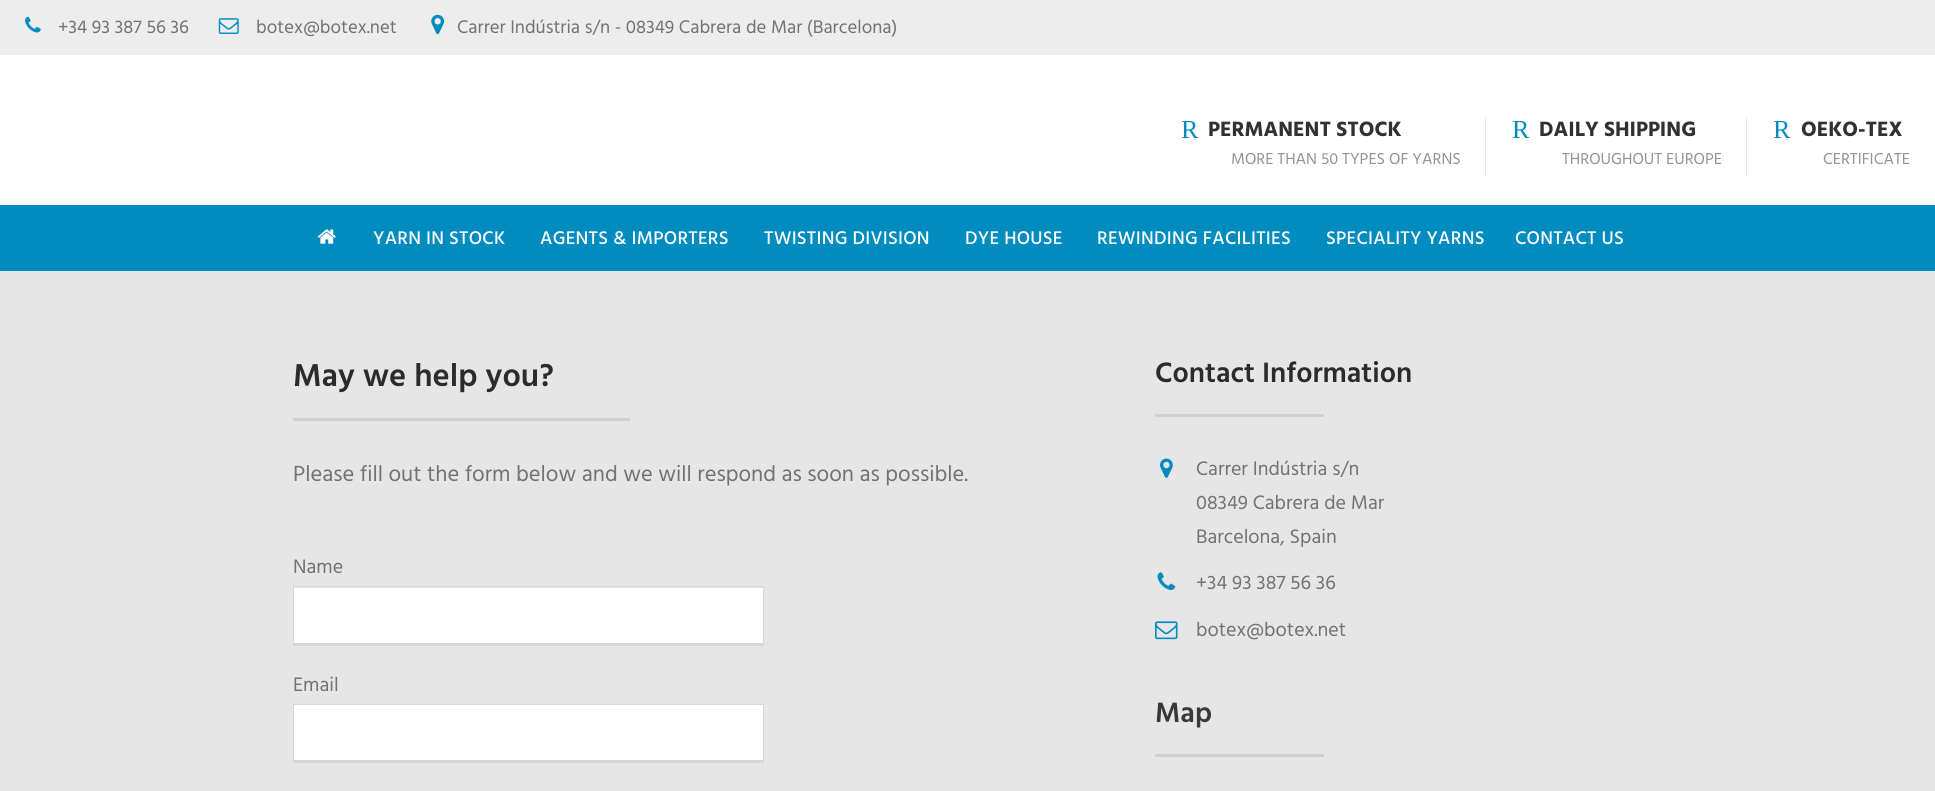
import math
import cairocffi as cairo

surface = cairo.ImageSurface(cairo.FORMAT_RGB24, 1935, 791)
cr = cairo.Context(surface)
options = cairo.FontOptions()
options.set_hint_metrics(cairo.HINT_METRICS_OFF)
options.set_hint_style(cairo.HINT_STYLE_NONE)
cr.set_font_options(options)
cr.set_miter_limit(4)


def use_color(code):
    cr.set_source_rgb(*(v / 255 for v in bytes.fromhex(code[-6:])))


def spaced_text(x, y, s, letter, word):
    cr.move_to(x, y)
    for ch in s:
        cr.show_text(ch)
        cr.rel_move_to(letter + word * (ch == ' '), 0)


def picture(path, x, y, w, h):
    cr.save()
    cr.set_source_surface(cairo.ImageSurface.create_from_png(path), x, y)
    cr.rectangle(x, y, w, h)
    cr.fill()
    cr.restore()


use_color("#ffffff")
cr.paint()
use_color("#ededed")
cr.rectangle(0, 0, 1935, 55)
cr.fill()
picture("img1.png", 25, 16, 16, 17)
cr.select_font_face("Hind")
cr.set_font_size(18.75)
use_color("#727272")
cr.move_to(58, 33)
cr.show_text("+34 93 387 56 36")
picture("img2.png", 218, 18, 21, 16)
cr.move_to(256, 33)
cr.show_text("botex@botex.net")
picture("img3.png", 431, 14, 14, 21)
cr.move_to(457, 33)
cr.show_text("Carrer Indústria s/n - 08349 Cabrera de Mar (Barcelona)")
cr.select_font_face("Liberation Serif")
cr.set_font_size(26)
use_color("#008cbf")
cr.move_to(1181, 138)
cr.show_text("R")
cr.select_font_face("Hind", cairo.FONT_SLANT_NORMAL, cairo.FONT_WEIGHT_BOLD)
cr.set_font_size(21.25)
use_color("#313131")
cr.move_to(1208, 136)
cr.show_text("PERMANENT STOCK")
cr.select_font_face("Hind")
cr.set_font_size(16.25)
use_color("#929292")
cr.move_to(1231, 164)
cr.show_text("MORE THAN 50 TYPES OF YARNS")
use_color("#e6e6e6")
cr.rectangle(1485, 118, 1, 58)
cr.fill()
cr.select_font_face("Liberation Serif")
cr.set_font_size(26)
use_color("#008cbf")
cr.move_to(1512, 138)
cr.show_text("R")
cr.select_font_face("Hind", cairo.FONT_SLANT_NORMAL, cairo.FONT_WEIGHT_BOLD)
cr.set_font_size(21.25)
use_color("#313131")
cr.move_to(1539, 136)
cr.show_text("DAILY SHIPPING")
cr.select_font_face("Hind")
cr.set_font_size(16.25)
use_color("#929292")
cr.move_to(1562, 164)
cr.show_text("THROUGHOUT EUROPE")
use_color("#e6e6e6")
cr.rectangle(1746, 118, 1, 58)
cr.fill()
cr.select_font_face("Liberation Serif")
cr.set_font_size(26)
use_color("#008cbf")
cr.move_to(1773, 138)
cr.show_text("R")
cr.select_font_face("Hind", cairo.FONT_SLANT_NORMAL, cairo.FONT_WEIGHT_BOLD)
cr.set_font_size(21.25)
use_color("#313131")
cr.move_to(1801, 136)
cr.show_text("OEKO-TEX")
cr.select_font_face("Hind")
cr.set_font_size(16.25)
use_color("#929292")
cr.move_to(1823, 164)
cr.show_text("CERTIFICATE")
use_color("#008cbf")
cr.rectangle(0, 205, 1935, 66)
cr.fill()
picture("img4.png", 317, 229, 19, 15)
cr.select_font_face("Hind Medium")
cr.set_font_size(18.75)
use_color("#ffffff")
spaced_text(373, 244, "YARN IN STOCK", 0.25, 0)
spaced_text(540, 244, "AGENTS & IMPORTERS", 0.25, 0)
spaced_text(764, 244, "TWISTING DIVISION", 0.25, 0)
spaced_text(965, 244, "DYE HOUSE", 0.25, 0)
spaced_text(1097, 244, "REWINDING FACILITIES", 0.25, 0)
spaced_text(1326, 244, "SPECIALITY YARNS", 0.25, 0)
spaced_text(1515, 244, "CONTACT US", 0.25, 0)
use_color("#e6e6e6")
cr.rectangle(0, 271, 1935, 520)
cr.fill()
cr.select_font_face("Hind SemiBold")
cr.set_font_size(32.5)
use_color("#2b2b2b")
cr.move_to(293, 386)
cr.show_text("May we help you?")
use_color("#d1d1d1")
cr.rectangle(293, 418, 337, 3)
cr.fill()
cr.select_font_face("Hind")
cr.set_font_size(22.5)
use_color("#727272")
cr.move_to(293, 481)
cr.show_text("Please fill out the form below and we will respond as soon as possible.")
cr.set_font_size(20)
cr.move_to(293, 573)
cr.show_text("Name")
use_color("#ffffff")
cr.rectangle(294, 588, 469, 55)
cr.fill()
use_color("#d7d7d7")
cr.rectangle(293, 586, 471, 1)
cr.fill()
cr.rectangle(763, 586, 1, 59)
cr.fill()
cr.rectangle(293, 643, 471, 3)
cr.fill()
cr.rectangle(293, 586, 1, 59)
cr.fill()
use_color("#727272")
cr.move_to(293, 691)
cr.show_text("Email")
use_color("#ffffff")
cr.rectangle(294, 705, 469, 55)
cr.fill()
use_color("#d7d7d7")
cr.rectangle(293, 704, 471, 1)
cr.fill()
cr.rectangle(763, 704, 1, 59)
cr.fill()
cr.rectangle(293, 760, 471, 3)
cr.fill()
cr.rectangle(293, 704, 1, 59)
cr.fill()
cr.select_font_face("Hind SemiBold")
cr.set_font_size(28.75)
use_color("#2b2b2b")
cr.move_to(1155, 382)
cr.show_text("Contact Information")
use_color("#d1d1d1")
cr.rectangle(1155, 414, 169, 3)
cr.fill()
picture("img5.png", 1160, 458, 13, 20)
cr.select_font_face("Hind")
cr.set_font_size(20)
use_color("#727272")
cr.move_to(1196, 475)
cr.show_text("Carrer Indústria s/n")
cr.move_to(1196, 509)
cr.show_text("08349 Cabrera de Mar")
cr.move_to(1196, 543)
cr.show_text("Barcelona, Spain")
picture("img6.png", 1157, 572, 19, 18)
cr.move_to(1196, 589)
cr.show_text("+34 93 387 56 36")
picture("img7.png", 1155, 621, 23, 19)
cr.move_to(1196, 636)
cr.show_text("botex@botex.net")
cr.select_font_face("Hind SemiBold")
cr.set_font_size(28.75)
use_color("#383838")
cr.move_to(1155, 722)
cr.show_text("Map")
use_color("#d1d1d1")
cr.rectangle(1155, 754, 169, 3)
cr.fill()
surface.write_to_png("result.png")
